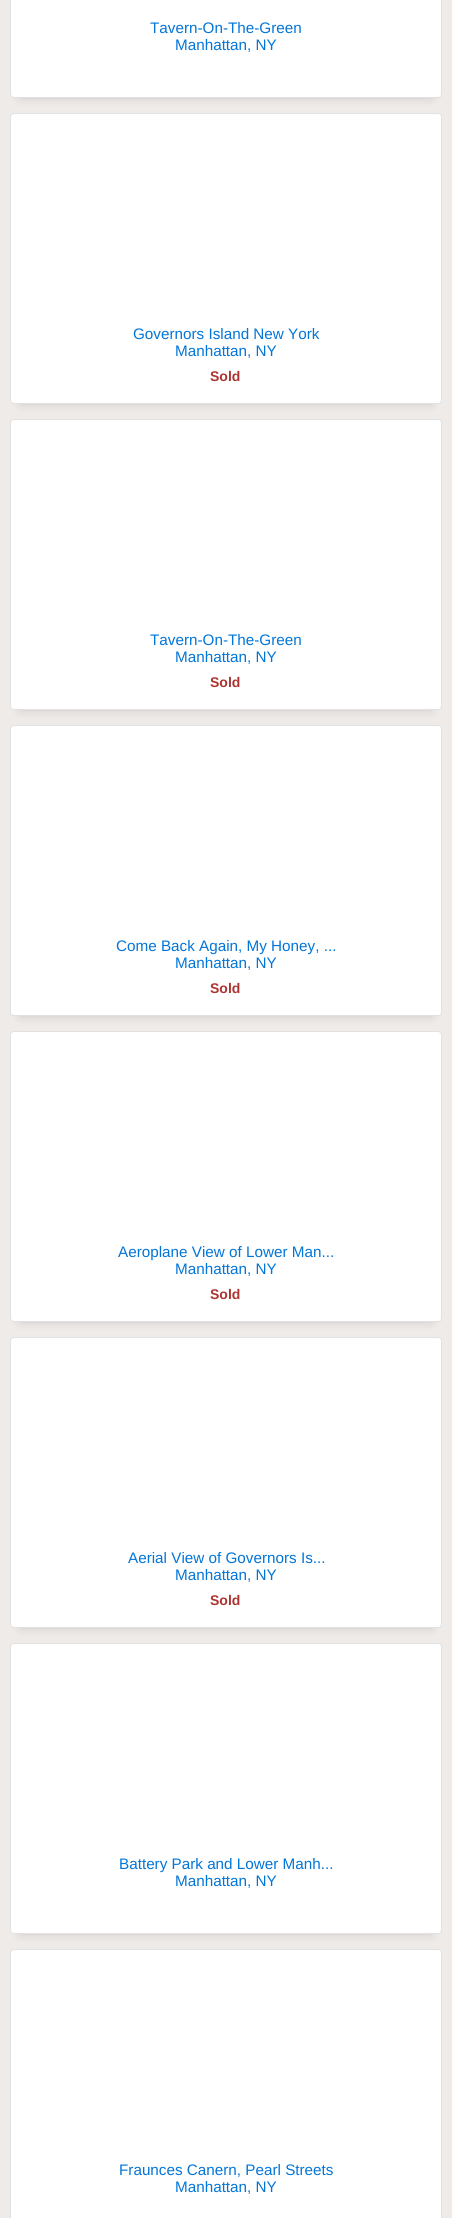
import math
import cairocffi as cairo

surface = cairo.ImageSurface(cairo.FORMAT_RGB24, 452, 2218)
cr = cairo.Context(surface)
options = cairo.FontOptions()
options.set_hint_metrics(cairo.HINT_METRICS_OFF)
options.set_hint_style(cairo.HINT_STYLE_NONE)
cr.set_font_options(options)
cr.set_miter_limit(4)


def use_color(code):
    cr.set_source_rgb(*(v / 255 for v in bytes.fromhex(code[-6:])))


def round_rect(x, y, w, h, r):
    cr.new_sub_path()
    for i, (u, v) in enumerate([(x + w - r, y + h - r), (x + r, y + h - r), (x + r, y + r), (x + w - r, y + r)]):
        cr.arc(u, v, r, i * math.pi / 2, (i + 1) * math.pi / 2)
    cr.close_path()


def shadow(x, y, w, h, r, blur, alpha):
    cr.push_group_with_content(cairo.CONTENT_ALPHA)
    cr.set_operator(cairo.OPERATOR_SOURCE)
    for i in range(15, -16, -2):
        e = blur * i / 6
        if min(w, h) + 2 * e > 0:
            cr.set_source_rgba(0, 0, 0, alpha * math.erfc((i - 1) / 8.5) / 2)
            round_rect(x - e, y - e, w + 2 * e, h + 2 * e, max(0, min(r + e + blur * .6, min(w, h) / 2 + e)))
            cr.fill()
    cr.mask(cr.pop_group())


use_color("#efebe9")
cr.paint()
use_color("#000000")
shadow(20, -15, 412, 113, 0, 5, 0.15)
use_color("#ffffff")
round_rect(10, -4, 432, 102, 4)
cr.fill()
round_rect(10.5, -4.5, 431, 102, 3.5)
cr.set_source_rgba(0, 0, 0, 0.12)
cr.set_line_width(1)
cr.stroke()
cr.select_font_face("Liberation Sans")
cr.set_font_size(15.25)
use_color("#0275d8")
cr.move_to(150, 33)
cr.show_text("Tavern-On-The-Green")
cr.move_to(175, 50)
cr.show_text("Manhattan, NY")
use_color("#000000")
shadow(20, 133, 412, 271, 0, 5, 0.15)
use_color("#ffffff")
round_rect(10, 113, 432, 291, 4)
cr.fill()
round_rect(10.5, 113.5, 431, 290, 3.5)
cr.set_source_rgba(0, 0, 0, 0.12)
cr.stroke()
use_color("#0275d8")
cr.move_to(133, 339)
cr.show_text("Governors Island New York")
cr.move_to(175, 356)
cr.show_text("Manhattan, NY")
cr.select_font_face("Liberation Sans", cairo.FONT_SLANT_NORMAL, cairo.FONT_WEIGHT_BOLD)
cr.set_font_size(14)
use_color("#ad3431")
cr.move_to(210, 381)
cr.show_text("Sold")
use_color("#000000")
shadow(20, 439, 412, 271, 0, 5, 0.15)
use_color("#ffffff")
round_rect(10, 419, 432, 291, 4)
cr.fill()
round_rect(10.5, 419.5, 431, 290, 3.5)
cr.set_source_rgba(0, 0, 0, 0.12)
cr.stroke()
cr.select_font_face("Liberation Sans")
cr.set_font_size(15.25)
use_color("#0275d8")
cr.move_to(150, 645)
cr.show_text("Tavern-On-The-Green")
cr.move_to(175, 662)
cr.show_text("Manhattan, NY")
cr.select_font_face("Liberation Sans", cairo.FONT_SLANT_NORMAL, cairo.FONT_WEIGHT_BOLD)
cr.set_font_size(14)
use_color("#ad3431")
cr.move_to(210, 687)
cr.show_text("Sold")
use_color("#000000")
shadow(20, 745, 412, 271, 0, 5, 0.15)
use_color("#ffffff")
round_rect(10, 725, 432, 291, 4)
cr.fill()
round_rect(10.5, 725.5, 431, 290, 3.5)
cr.set_source_rgba(0, 0, 0, 0.12)
cr.stroke()
cr.select_font_face("Liberation Sans")
cr.set_font_size(15.25)
use_color("#0275d8")
cr.move_to(116, 951)
cr.show_text("Come Back Again, My Honey, ...")
cr.move_to(175, 968)
cr.show_text("Manhattan, NY")
cr.select_font_face("Liberation Sans", cairo.FONT_SLANT_NORMAL, cairo.FONT_WEIGHT_BOLD)
cr.set_font_size(14)
use_color("#ad3431")
cr.move_to(210, 993)
cr.show_text("Sold")
use_color("#000000")
shadow(20, 1051, 412, 271, 0, 5, 0.15)
use_color("#ffffff")
round_rect(10, 1031, 432, 291, 4)
cr.fill()
round_rect(10.5, 1031.5, 431, 290, 3.5)
cr.set_source_rgba(0, 0, 0, 0.12)
cr.stroke()
cr.select_font_face("Liberation Sans")
cr.set_font_size(15.25)
use_color("#0275d8")
cr.move_to(118, 1257)
cr.show_text("Aeroplane View of Lower Man...")
cr.move_to(175, 1274)
cr.show_text("Manhattan, NY")
cr.select_font_face("Liberation Sans", cairo.FONT_SLANT_NORMAL, cairo.FONT_WEIGHT_BOLD)
cr.set_font_size(14)
use_color("#ad3431")
cr.move_to(210, 1299)
cr.show_text("Sold")
use_color("#000000")
shadow(20, 1357, 412, 271, 0, 5, 0.15)
use_color("#ffffff")
round_rect(10, 1337, 432, 291, 4)
cr.fill()
round_rect(10.5, 1337.5, 431, 290, 3.5)
cr.set_source_rgba(0, 0, 0, 0.12)
cr.stroke()
cr.select_font_face("Liberation Sans")
cr.set_font_size(15.25)
use_color("#0275d8")
cr.move_to(128, 1563)
cr.show_text("Aerial View of Governors Is...")
cr.move_to(175, 1580)
cr.show_text("Manhattan, NY")
cr.select_font_face("Liberation Sans", cairo.FONT_SLANT_NORMAL, cairo.FONT_WEIGHT_BOLD)
cr.set_font_size(14)
use_color("#ad3431")
cr.move_to(210, 1605)
cr.show_text("Sold")
use_color("#000000")
shadow(20, 1663, 412, 271, 0, 5, 0.15)
use_color("#ffffff")
round_rect(10, 1643, 432, 291, 4)
cr.fill()
round_rect(10.5, 1643.5, 431, 290, 3.5)
cr.set_source_rgba(0, 0, 0, 0.12)
cr.stroke()
cr.select_font_face("Liberation Sans")
cr.set_font_size(15.25)
use_color("#0275d8")
cr.move_to(119, 1869)
cr.show_text("Battery Park and Lower Manh...")
cr.move_to(175, 1886)
cr.show_text("Manhattan, NY")
use_color("#ffffff")
round_rect(10, 1949, 432, 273, 4)
cr.fill()
round_rect(10.5, 1949.5, 431, 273, 3.5)
cr.set_source_rgba(0, 0, 0, 0.12)
cr.stroke()
use_color("#0275d8")
cr.move_to(119, 2175)
cr.show_text("Fraunces Canern, Pearl Streets")
cr.move_to(175, 2192)
cr.show_text("Manhattan, NY")
surface.write_to_png("result.png")
